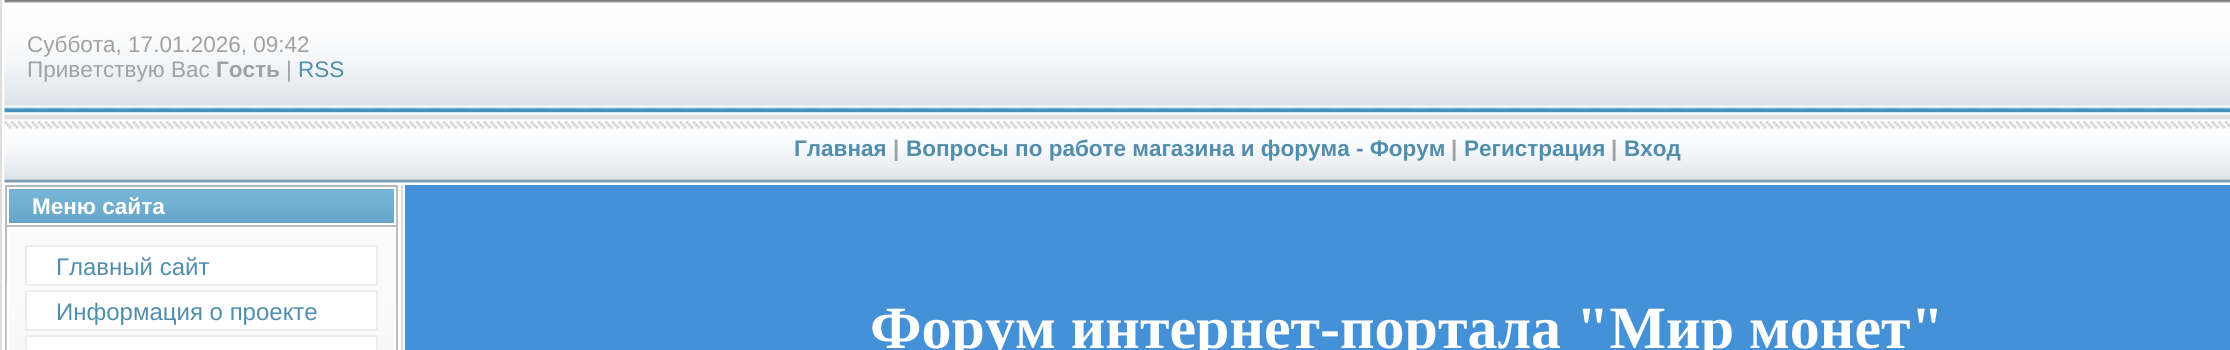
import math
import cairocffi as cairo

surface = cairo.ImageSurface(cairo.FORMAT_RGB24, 2230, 350)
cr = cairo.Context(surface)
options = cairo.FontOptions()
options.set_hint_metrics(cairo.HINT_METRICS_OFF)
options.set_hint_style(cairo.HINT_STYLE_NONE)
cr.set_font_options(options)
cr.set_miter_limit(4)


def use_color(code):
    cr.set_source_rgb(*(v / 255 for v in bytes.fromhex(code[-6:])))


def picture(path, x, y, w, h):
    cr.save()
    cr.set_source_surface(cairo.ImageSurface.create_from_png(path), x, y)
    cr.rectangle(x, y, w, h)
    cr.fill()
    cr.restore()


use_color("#ffffff")
cr.paint()
use_color("#dedede")
cr.rectangle(0, 0, 2, 350)
cr.fill()
picture("img1.png", 4, 0, 2226, 113)
cr.select_font_face("Liberation Sans")
cr.set_font_size(22.5)
use_color("#a1a1a1")
cr.move_to(27, 52)
cr.show_text("Суббота, 17.01.2026, 09:42")
cr.move_to(27, 77)
cr.show_text("Приветствую Вас")
cr.select_font_face("Liberation Sans", cairo.FONT_SLANT_NORMAL, cairo.FONT_WEIGHT_BOLD)
cr.move_to(216, 77)
cr.show_text("Гость")
cr.select_font_face("Liberation Sans")
cr.move_to(286, 77)
cr.show_text("|")
use_color("#518ead")
cr.move_to(298, 77)
cr.show_text("RSS")
picture("img2.png", 4, 112, 2226, 71)
cr.select_font_face("Liberation Sans", cairo.FONT_SLANT_NORMAL, cairo.FONT_WEIGHT_BOLD)
cr.move_to(794, 156)
cr.show_text("Главная")
use_color("#a1a1a1")
cr.move_to(893, 156)
cr.show_text("|")
use_color("#518ead")
cr.move_to(906, 156)
cr.show_text("Вопросы по работе магазина и форума - Форум")
use_color("#a1a1a1")
cr.move_to(1451, 156)
cr.show_text("|")
use_color("#518ead")
cr.move_to(1464, 156)
cr.show_text("Регистрация")
use_color("#a1a1a1")
cr.move_to(1611, 156)
cr.show_text("|")
use_color("#518ead")
cr.move_to(1624, 156)
cr.show_text("Вход")
use_color("#bcbcbc")
cr.rectangle(5, 185, 393, 165)
cr.fill()
picture("img3.png", 6, 186, 390, 39)
cr.rectangle(8, 188, 387, 36)
use_color("#ffffff")
cr.stroke()
cr.move_to(32, 214)
cr.show_text("Меню сайта")
use_color("#fbfbfc")
cr.rectangle(9, 229, 385, 55)
cr.fill()
picture("img4.png", 6, 283, 388, 67)
cr.rectangle(8, 228, 387, 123)
use_color("#ffffff")
cr.stroke()
cr.rectangle(26, 246, 351, 39)
cr.fill_preserve()
use_color("#ededed")
cr.stroke()
cr.select_font_face("Liberation Sans")
cr.set_font_size(24)
use_color("#518ead")
cr.move_to(56, 275)
cr.show_text("Главный сайт")
use_color("#ffffff")
cr.rectangle(26, 291, 351, 39)
cr.fill_preserve()
use_color("#ededed")
cr.stroke()
use_color("#518ead")
cr.move_to(56, 320)
cr.show_text("Информация о проекте")
use_color("#ffffff")
cr.rectangle(26, 336, 351, 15)
cr.fill_preserve()
use_color("#ededed")
cr.stroke()
use_color("#dedede")
cr.rectangle(401, 185, 2, 165)
cr.fill()
use_color("#4491d7")
cr.rectangle(405, 185, 1825, 165)
cr.fill()
cr.select_font_face("Liberation Serif", cairo.FONT_SLANT_NORMAL, cairo.FONT_WEIGHT_BOLD)
cr.set_font_size(60)
use_color("#ffffff")
cr.move_to(870, 348)
cr.show_text("Форум интернет-портала \"Мир монет\"")
surface.write_to_png("result.png")
